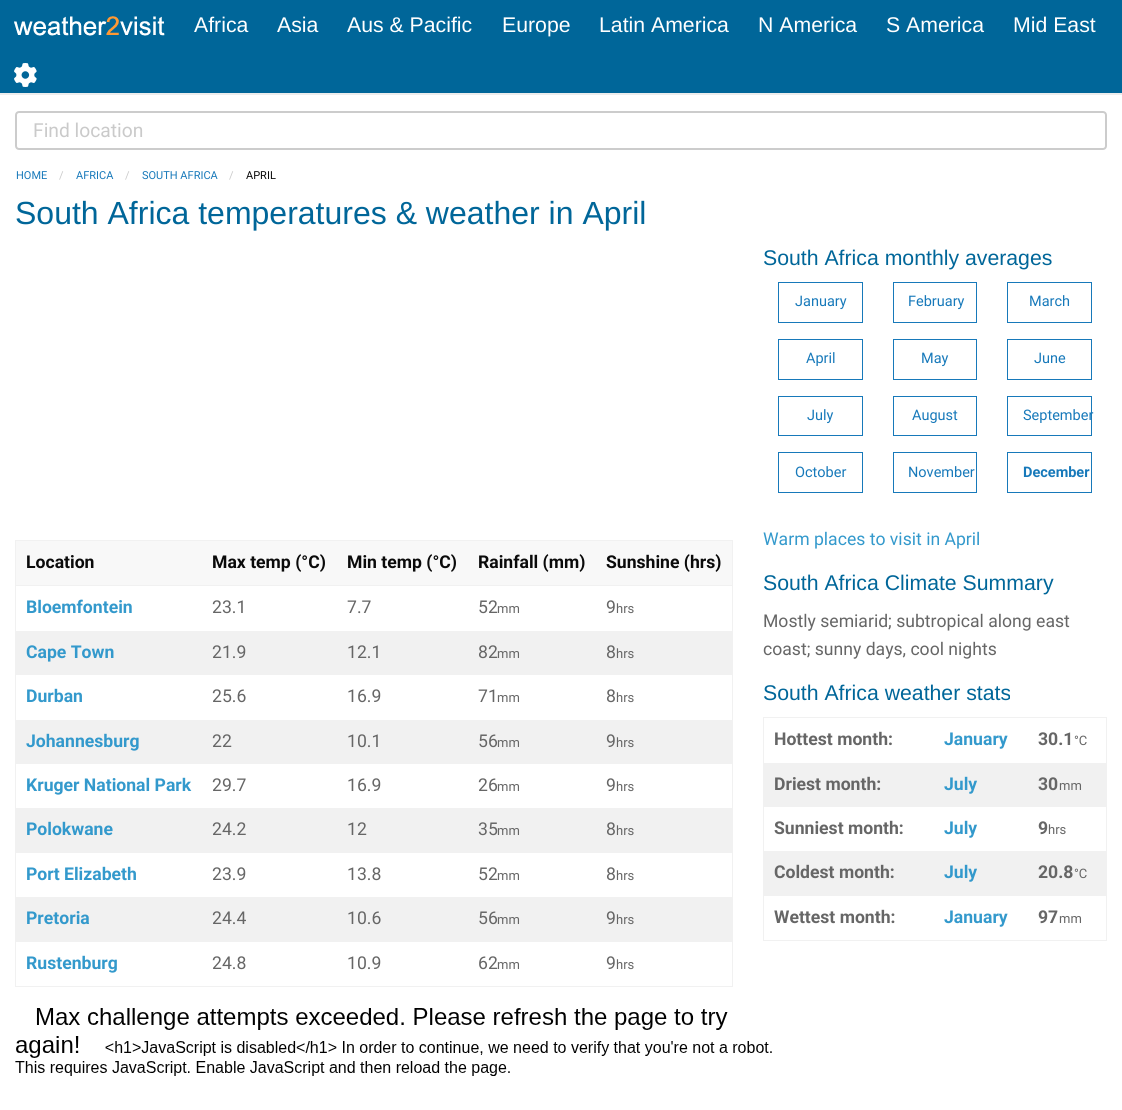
import math
import cairocffi as cairo

surface = cairo.ImageSurface(cairo.FORMAT_RGB24, 1122, 1110)
cr = cairo.Context(surface)
options = cairo.FontOptions()
options.set_hint_metrics(cairo.HINT_METRICS_OFF)
options.set_hint_style(cairo.HINT_STYLE_NONE)
cr.set_font_options(options)
cr.set_miter_limit(4)


def use_color(code):
    cr.set_source_rgb(*(v / 255 for v in bytes.fromhex(code[-6:])))


def round_rect(x, y, w, h, r):
    cr.new_sub_path()
    for i, (u, v) in enumerate([(x + w - r, y + h - r), (x + r, y + h - r), (x + r, y + r), (x + w - r, y + r)]):
        cr.arc(u, v, r, i * math.pi / 2, (i + 1) * math.pi / 2)
    cr.close_path()


def picture(path, x, y, w, h):
    cr.save()
    cr.set_source_surface(cairo.ImageSurface.create_from_png(path), x, y)
    cr.rectangle(x, y, w, h)
    cr.fill()
    cr.restore()


use_color("#ffffff")
cr.paint()
use_color("#006699")
cr.rectangle(0, 0, 1122, 93)
cr.fill()
use_color("#ededed")
cr.rectangle(0, 93, 1122, 2)
cr.fill()
picture("img1.png", 14, 16, 151, 20)
cr.select_font_face("Liberation Sans")
cr.set_font_size(21.25)
use_color("#ffffff")
cr.move_to(194, 32)
cr.show_text("Africa")
cr.move_to(277, 32)
cr.show_text("Asia")
cr.move_to(347, 32)
cr.show_text("Aus & Pacific")
cr.move_to(502, 32)
cr.show_text("Europe")
cr.move_to(599, 32)
cr.show_text("Latin America")
cr.move_to(758, 32)
cr.show_text("N America")
cr.move_to(886, 32)
cr.show_text("S America")
cr.move_to(1013, 32)
cr.show_text("Mid East")
picture("img2.png", 14, 63, 23, 24)
round_rect(16, 112, 1090, 37, 3)
use_color("#cccccc")
cr.stroke()
cr.select_font_face("Roboto")
cr.set_font_size(19.25)
use_color("#cacaca")
cr.move_to(33, 137)
cr.show_text("Find location")
cr.set_font_size(11)
use_color("#1779ba")
cr.move_to(16, 179)
cr.show_text("HOME")
use_color("#cacaca")
cr.move_to(59, 179)
cr.show_text("/")
use_color("#1779ba")
cr.move_to(76, 179)
cr.show_text("AFRICA")
use_color("#cacaca")
cr.move_to(125, 179)
cr.show_text("/")
use_color("#1779ba")
cr.move_to(142, 179)
cr.show_text("SOUTH AFRICA")
use_color("#cacaca")
cr.move_to(229, 179)
cr.show_text("/")
use_color("#0a0a0a")
cr.move_to(246, 179)
cr.show_text("APRIL")
cr.select_font_face("Liberation Sans")
cr.set_font_size(32)
use_color("#006699")
cr.move_to(15, 224)
cr.show_text("South Africa temperatures & weather in April")
use_color("#f8f8f8")
cr.rectangle(16, 541, 716, 44)
cr.fill()
use_color("#f1f1f1")
cr.rectangle(15, 540, 718, 1)
cr.fill()
cr.rectangle(15, 585, 718, 1)
cr.fill()
cr.rectangle(732, 585, 1, 402)
cr.fill()
cr.rectangle(732, 540, 1, 46)
cr.fill()
cr.rectangle(15, 986, 718, 1)
cr.fill()
cr.rectangle(15, 585, 1, 402)
cr.fill()
cr.rectangle(15, 540, 1, 46)
cr.fill()
cr.select_font_face("Roboto", cairo.FONT_SLANT_NORMAL, cairo.FONT_WEIGHT_BOLD)
cr.set_font_size(17.6)
use_color("#0a0a0a")
cr.move_to(26, 568)
cr.show_text("Location")
cr.move_to(212, 568)
cr.show_text("Max temp (°C)")
cr.move_to(347, 568)
cr.show_text("Min temp (°C)")
cr.move_to(478, 568)
cr.show_text("Rainfall (mm)")
cr.move_to(606, 568)
cr.show_text("Sunshine (hrs)")
use_color("#3399cc")
cr.move_to(26, 613)
cr.show_text("Bloemfontein")
cr.select_font_face("Roboto")
use_color("#666666")
cr.move_to(212, 613)
cr.show_text("23.1")
cr.move_to(347, 613)
cr.show_text("7.7")
cr.move_to(478, 613)
cr.show_text("52")
cr.set_font_size(13)
cr.move_to(497, 613)
cr.show_text("mm")
cr.set_font_size(17.6)
cr.move_to(606, 613)
cr.show_text("9")
cr.set_font_size(13)
cr.move_to(616, 613)
cr.show_text("hrs")
use_color("#f1f1f1")
cr.rectangle(16, 631, 716, 44)
cr.fill()
cr.select_font_face("Roboto", cairo.FONT_SLANT_NORMAL, cairo.FONT_WEIGHT_BOLD)
cr.set_font_size(17.6)
use_color("#3399cc")
cr.move_to(26, 658)
cr.show_text("Cape Town")
cr.select_font_face("Roboto")
use_color("#666666")
cr.move_to(212, 658)
cr.show_text("21.9")
cr.move_to(347, 658)
cr.show_text("12.1")
cr.move_to(478, 658)
cr.show_text("82")
cr.set_font_size(13)
cr.move_to(497, 658)
cr.show_text("mm")
cr.set_font_size(17.6)
cr.move_to(606, 658)
cr.show_text("8")
cr.set_font_size(13)
cr.move_to(616, 658)
cr.show_text("hrs")
cr.select_font_face("Roboto", cairo.FONT_SLANT_NORMAL, cairo.FONT_WEIGHT_BOLD)
cr.set_font_size(17.6)
use_color("#3399cc")
cr.move_to(26, 702)
cr.show_text("Durban")
cr.select_font_face("Roboto")
use_color("#666666")
cr.move_to(212, 702)
cr.show_text("25.6")
cr.move_to(347, 702)
cr.show_text("16.9")
cr.move_to(478, 702)
cr.show_text("71")
cr.set_font_size(13)
cr.move_to(497, 702)
cr.show_text("mm")
cr.set_font_size(17.6)
cr.move_to(606, 702)
cr.show_text("8")
cr.set_font_size(13)
cr.move_to(616, 702)
cr.show_text("hrs")
use_color("#f1f1f1")
cr.rectangle(16, 720, 716, 44)
cr.fill()
cr.select_font_face("Roboto", cairo.FONT_SLANT_NORMAL, cairo.FONT_WEIGHT_BOLD)
cr.set_font_size(17.6)
use_color("#3399cc")
cr.move_to(26, 747)
cr.show_text("Johannesburg")
cr.select_font_face("Roboto")
use_color("#666666")
cr.move_to(212, 747)
cr.show_text("22")
cr.move_to(347, 747)
cr.show_text("10.1")
cr.move_to(478, 747)
cr.show_text("56")
cr.set_font_size(13)
cr.move_to(497, 747)
cr.show_text("mm")
cr.set_font_size(17.6)
cr.move_to(606, 747)
cr.show_text("9")
cr.set_font_size(13)
cr.move_to(616, 747)
cr.show_text("hrs")
cr.select_font_face("Roboto", cairo.FONT_SLANT_NORMAL, cairo.FONT_WEIGHT_BOLD)
cr.set_font_size(17.6)
use_color("#3399cc")
cr.move_to(26, 791)
cr.show_text("Kruger National Park")
cr.select_font_face("Roboto")
use_color("#666666")
cr.move_to(212, 791)
cr.show_text("29.7")
cr.move_to(347, 791)
cr.show_text("16.9")
cr.move_to(478, 791)
cr.show_text("26")
cr.set_font_size(13)
cr.move_to(497, 791)
cr.show_text("mm")
cr.set_font_size(17.6)
cr.move_to(606, 791)
cr.show_text("9")
cr.set_font_size(13)
cr.move_to(616, 791)
cr.show_text("hrs")
use_color("#f1f1f1")
cr.rectangle(16, 808, 716, 45)
cr.fill()
cr.select_font_face("Roboto", cairo.FONT_SLANT_NORMAL, cairo.FONT_WEIGHT_BOLD)
cr.set_font_size(17.6)
use_color("#3399cc")
cr.move_to(26, 835)
cr.show_text("Polokwane")
cr.select_font_face("Roboto")
use_color("#666666")
cr.move_to(212, 835)
cr.show_text("24.2")
cr.move_to(347, 835)
cr.show_text("12")
cr.move_to(478, 835)
cr.show_text("35")
cr.set_font_size(13)
cr.move_to(497, 835)
cr.show_text("mm")
cr.set_font_size(17.6)
cr.move_to(606, 835)
cr.show_text("8")
cr.set_font_size(13)
cr.move_to(616, 835)
cr.show_text("hrs")
cr.select_font_face("Roboto", cairo.FONT_SLANT_NORMAL, cairo.FONT_WEIGHT_BOLD)
cr.set_font_size(17.6)
use_color("#3399cc")
cr.move_to(26, 880)
cr.show_text("Port Elizabeth")
cr.select_font_face("Roboto")
use_color("#666666")
cr.move_to(212, 880)
cr.show_text("23.9")
cr.move_to(347, 880)
cr.show_text("13.8")
cr.move_to(478, 880)
cr.show_text("52")
cr.set_font_size(13)
cr.move_to(497, 880)
cr.show_text("mm")
cr.set_font_size(17.6)
cr.move_to(606, 880)
cr.show_text("8")
cr.set_font_size(13)
cr.move_to(616, 880)
cr.show_text("hrs")
use_color("#f1f1f1")
cr.rectangle(16, 897, 716, 45)
cr.fill()
cr.select_font_face("Roboto", cairo.FONT_SLANT_NORMAL, cairo.FONT_WEIGHT_BOLD)
cr.set_font_size(17.6)
use_color("#3399cc")
cr.move_to(26, 924)
cr.show_text("Pretoria")
cr.select_font_face("Roboto")
use_color("#666666")
cr.move_to(212, 924)
cr.show_text("24.4")
cr.move_to(347, 924)
cr.show_text("10.6")
cr.move_to(478, 924)
cr.show_text("56")
cr.set_font_size(13)
cr.move_to(497, 924)
cr.show_text("mm")
cr.set_font_size(17.6)
cr.move_to(606, 924)
cr.show_text("9")
cr.set_font_size(13)
cr.move_to(616, 924)
cr.show_text("hrs")
cr.select_font_face("Roboto", cairo.FONT_SLANT_NORMAL, cairo.FONT_WEIGHT_BOLD)
cr.set_font_size(17.6)
use_color("#3399cc")
cr.move_to(26, 969)
cr.show_text("Rustenburg")
cr.select_font_face("Roboto")
use_color("#666666")
cr.move_to(212, 969)
cr.show_text("24.8")
cr.move_to(347, 969)
cr.show_text("10.9")
cr.move_to(478, 969)
cr.show_text("62")
cr.set_font_size(13)
cr.move_to(497, 969)
cr.show_text("mm")
cr.set_font_size(17.6)
cr.move_to(606, 969)
cr.show_text("9")
cr.set_font_size(13)
cr.move_to(616, 969)
cr.show_text("hrs")
picture("img3.png", 15, 1008, 757, 68)
cr.select_font_face("Liberation Sans")
cr.set_font_size(21.25)
use_color("#006699")
cr.move_to(763, 265)
cr.show_text("South Africa monthly averages")
cr.rectangle(778.5, 282.5, 84, 40)
use_color("#1779ba")
cr.set_line_width(1)
cr.stroke()
cr.select_font_face("Roboto")
cr.set_font_size(14.5)
cr.move_to(795, 306)
cr.show_text("January")
cr.rectangle(893.5, 282.5, 83, 40)
cr.stroke()
cr.move_to(908, 306)
cr.show_text("February")
cr.rectangle(1007.5, 282.5, 84, 40)
cr.stroke()
cr.move_to(1029, 306)
cr.show_text("March")
cr.rectangle(778.5, 339.5, 84, 40)
cr.stroke()
cr.move_to(806, 363)
cr.show_text("April")
cr.rectangle(893.5, 339.5, 83, 40)
cr.stroke()
cr.move_to(921, 363)
cr.show_text("May")
cr.rectangle(1007.5, 339.5, 84, 40)
cr.stroke()
cr.move_to(1034, 363)
cr.show_text("June")
cr.rectangle(778.5, 396.5, 84, 39)
cr.stroke()
cr.move_to(807, 420)
cr.show_text("July")
cr.rectangle(893.5, 396.5, 83, 39)
cr.stroke()
cr.move_to(912, 420)
cr.show_text("August")
cr.rectangle(1007.5, 396.5, 84, 39)
cr.stroke()
cr.move_to(1023, 420)
cr.show_text("September")
cr.rectangle(778.5, 452.5, 84, 40)
cr.stroke()
cr.move_to(795, 477)
cr.show_text("October")
cr.rectangle(893.5, 452.5, 83, 40)
cr.stroke()
cr.move_to(908, 477)
cr.show_text("November")
cr.rectangle(1007.5, 452.5, 84, 40)
cr.stroke()
cr.select_font_face("Roboto", cairo.FONT_SLANT_NORMAL, cairo.FONT_WEIGHT_BOLD)
cr.move_to(1023, 477)
cr.show_text("December")
cr.select_font_face("Roboto")
cr.set_font_size(17.6)
use_color("#3399cc")
cr.move_to(763, 545)
cr.show_text("Warm places to visit in April")
cr.select_font_face("Liberation Sans")
cr.set_font_size(21.25)
use_color("#006699")
cr.move_to(763, 590)
cr.show_text("South Africa Climate Summary")
cr.select_font_face("Roboto")
cr.set_font_size(17.6)
use_color("#666666")
cr.move_to(763, 627)
cr.show_text("Mostly semiarid; subtropical along east")
cr.move_to(763, 655)
cr.show_text("coast; sunny days, cool nights")
cr.select_font_face("Liberation Sans")
cr.set_font_size(21.25)
use_color("#006699")
cr.move_to(763, 700)
cr.show_text("South Africa weather stats")
use_color("#f1f1f1")
cr.rectangle(763, 717, 344, 1)
cr.fill()
cr.rectangle(1106, 717, 1, 224)
cr.fill()
cr.rectangle(763, 940, 344, 1)
cr.fill()
cr.rectangle(763, 717, 1, 224)
cr.fill()
cr.select_font_face("Roboto", cairo.FONT_SLANT_NORMAL, cairo.FONT_WEIGHT_BOLD)
cr.set_font_size(17.6)
use_color("#666666")
cr.move_to(774, 745)
cr.show_text("Hottest month:")
use_color("#3399cc")
cr.move_to(944, 745)
cr.show_text("January")
use_color("#666666")
cr.move_to(1038, 745)
cr.show_text("30.1")
cr.select_font_face("Roboto")
cr.set_font_size(13)
cr.move_to(1074, 745)
cr.show_text("°C")
use_color("#f1f1f1")
cr.rectangle(764, 763, 342, 44)
cr.fill()
cr.select_font_face("Roboto", cairo.FONT_SLANT_NORMAL, cairo.FONT_WEIGHT_BOLD)
cr.set_font_size(17.6)
use_color("#666666")
cr.move_to(774, 790)
cr.show_text("Driest month:")
use_color("#3399cc")
cr.move_to(944, 790)
cr.show_text("July")
use_color("#666666")
cr.move_to(1038, 790)
cr.show_text("30")
cr.select_font_face("Roboto")
cr.set_font_size(13)
cr.move_to(1059, 790)
cr.show_text("mm")
cr.select_font_face("Roboto", cairo.FONT_SLANT_NORMAL, cairo.FONT_WEIGHT_BOLD)
cr.set_font_size(17.6)
cr.move_to(774, 834)
cr.show_text("Sunniest month:")
use_color("#3399cc")
cr.move_to(944, 834)
cr.show_text("July")
use_color("#666666")
cr.move_to(1038, 834)
cr.show_text("9")
cr.select_font_face("Roboto")
cr.set_font_size(13)
cr.move_to(1048, 834)
cr.show_text("hrs")
use_color("#f1f1f1")
cr.rectangle(764, 851, 342, 45)
cr.fill()
cr.select_font_face("Roboto", cairo.FONT_SLANT_NORMAL, cairo.FONT_WEIGHT_BOLD)
cr.set_font_size(17.6)
use_color("#666666")
cr.move_to(774, 878)
cr.show_text("Coldest month:")
use_color("#3399cc")
cr.move_to(944, 878)
cr.show_text("July")
use_color("#666666")
cr.move_to(1038, 878)
cr.show_text("20.8")
cr.select_font_face("Roboto")
cr.set_font_size(13)
cr.move_to(1074, 878)
cr.show_text("°C")
cr.select_font_face("Roboto", cairo.FONT_SLANT_NORMAL, cairo.FONT_WEIGHT_BOLD)
cr.set_font_size(17.6)
cr.move_to(774, 923)
cr.show_text("Wettest month:")
use_color("#3399cc")
cr.move_to(944, 923)
cr.show_text("January")
use_color("#666666")
cr.move_to(1038, 923)
cr.show_text("97")
cr.select_font_face("Roboto")
cr.set_font_size(13)
cr.move_to(1059, 923)
cr.show_text("mm")
surface.write_to_png("result.png")
